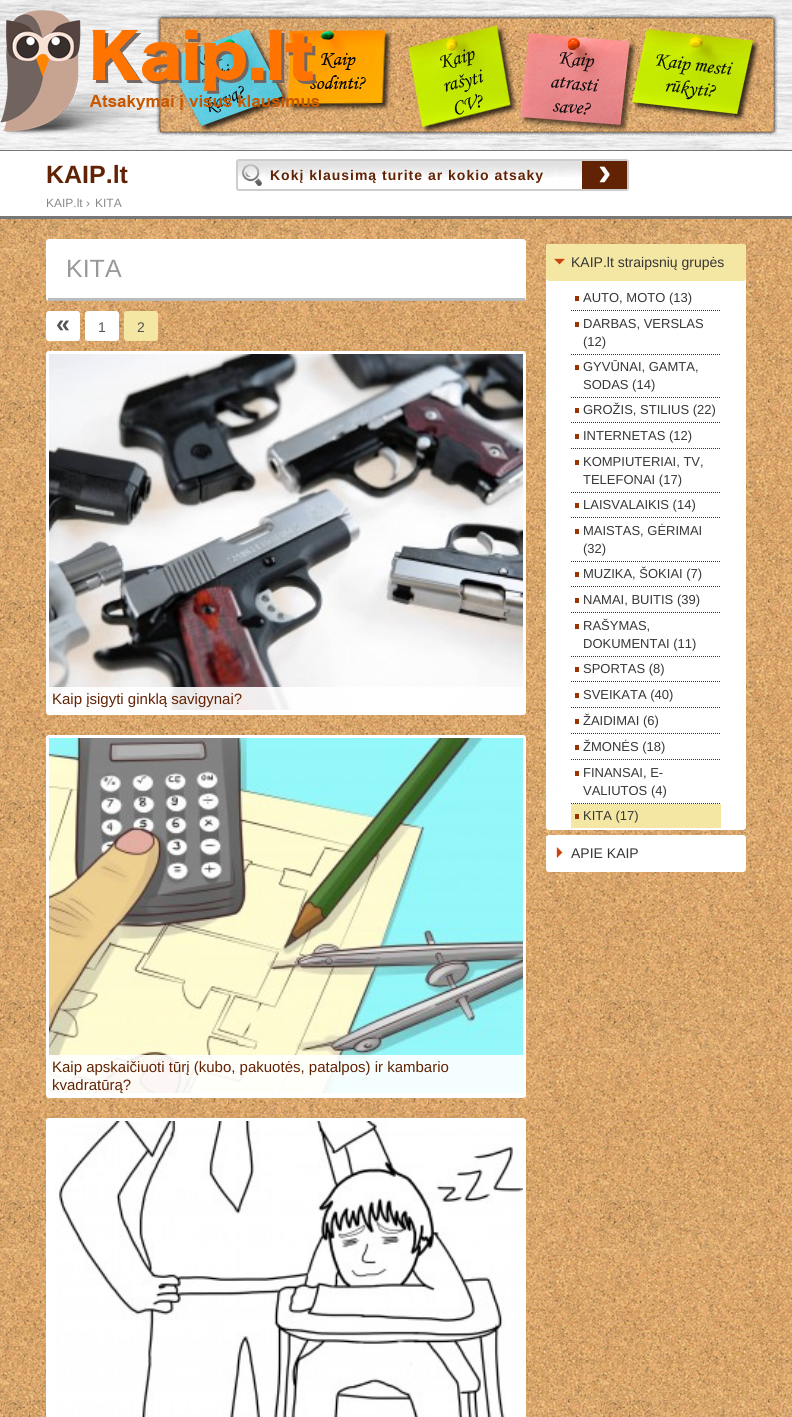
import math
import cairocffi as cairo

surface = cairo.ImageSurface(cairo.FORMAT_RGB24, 792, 1417)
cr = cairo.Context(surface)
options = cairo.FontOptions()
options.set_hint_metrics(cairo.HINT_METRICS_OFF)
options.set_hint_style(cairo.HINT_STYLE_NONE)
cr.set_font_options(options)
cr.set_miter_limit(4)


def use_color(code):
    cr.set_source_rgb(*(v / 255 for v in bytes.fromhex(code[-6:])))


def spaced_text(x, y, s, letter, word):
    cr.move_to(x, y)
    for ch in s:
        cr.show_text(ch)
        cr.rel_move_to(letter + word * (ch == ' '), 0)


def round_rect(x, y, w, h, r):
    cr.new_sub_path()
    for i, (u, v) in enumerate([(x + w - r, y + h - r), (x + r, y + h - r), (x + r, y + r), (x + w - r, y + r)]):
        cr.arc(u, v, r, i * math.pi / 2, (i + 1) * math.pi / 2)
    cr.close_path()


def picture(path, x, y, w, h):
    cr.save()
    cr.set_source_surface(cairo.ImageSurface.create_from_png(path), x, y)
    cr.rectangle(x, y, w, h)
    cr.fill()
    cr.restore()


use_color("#ffffff")
cr.paint()
picture("img1.png", 0, 219, 792, 1198)
picture("img2.png", 0, 0, 792, 150)
picture("img3.png", 156, 14, 622, 122)
picture("img4.png", 0, 10, 320, 125)
use_color("#777777")
cr.rectangle(0, 150, 792, 1)
cr.fill()
cr.rectangle(0, 216, 792, 3)
cr.fill()
cr.select_font_face("Liberation Sans", cairo.FONT_SLANT_NORMAL, cairo.FONT_WEIGHT_BOLD)
cr.set_font_size(25)
use_color("#622304")
cr.move_to(46, 183)
cr.show_text("KAIP.lt")
picture("img5.png", 236, 161, 393, 16)
round_rect(237, 160, 391, 30, 2)
use_color("#cdcdcd")
cr.stroke()
picture("img6.png", 242, 164, 20, 22)
picture("img7.png", 265, 170, 289, 8)
cr.set_font_size(14)
use_color("#622304")
spaced_text(270, 180, "Kokį klausimą turite ar kokio atsaky", 1, 0)
cr.rectangle(582, 161, 45, 28)
cr.fill()
cr.set_font_size(40)
use_color("#ffffff")
cr.move_to(598, 185)
cr.show_text("›")
cr.select_font_face("Liberation Sans")
cr.set_font_size(12)
use_color("#888888")
cr.move_to(46, 207)
cr.show_text("KAIP.lt ›")
cr.move_to(95, 207)
cr.show_text("KITA")
use_color("#ffffff")
round_rect(46, 239, 480, 62, 3)
cr.fill()
use_color("#bbbbbb")
cr.rectangle(48, 298, 477, 3)
cr.fill()
cr.set_font_size(25)
use_color("#999999")
cr.move_to(66, 277)
cr.show_text("KITA")
use_color("#ffffff")
round_rect(46, 311, 34, 30, 3)
cr.fill()
cr.select_font_face("Liberation Sans", cairo.FONT_SLANT_NORMAL, cairo.FONT_WEIGHT_BOLD)
use_color("#555555")
cr.move_to(56, 332)
cr.show_text("«")
use_color("#ffffff")
round_rect(85, 311, 34, 30, 3)
cr.fill()
cr.select_font_face("Liberation Sans")
cr.set_font_size(14)
use_color("#555555")
cr.move_to(98, 332)
cr.show_text("1")
use_color("#f4e7a4")
round_rect(124, 311, 34, 30, 3)
cr.fill()
use_color("#555555")
cr.move_to(137, 332)
cr.show_text("2")
use_color("#ffffff")
round_rect(47.5, 352.5, 477, 361, 1.5)
cr.fill_preserve()
cr.set_line_width(3)
cr.stroke()
picture("img8.png", 49, 354, 474, 356)
cr.set_source_rgba(1, 1, 1, 0.9)
cr.rectangle(49, 687, 474, 23)
cr.fill()
cr.set_font_size(15)
use_color("#622304")
cr.move_to(52, 704)
cr.show_text("Kaip įsigyti ginklą savigynai?")
use_color("#ffffff")
round_rect(47.5, 736.5, 477, 360, 1.5)
cr.fill_preserve()
cr.stroke()
picture("img9.png", 49, 738, 474, 355)
cr.set_source_rgba(1, 1, 1, 0.9)
cr.rectangle(49, 1055, 474, 38)
cr.fill()
use_color("#622304")
cr.move_to(52, 1072)
cr.show_text("Kaip apskaičiuoti tūrį (kubo, pakuotės, patalpos) ir kambario")
cr.move_to(52, 1090)
cr.show_text("kvadratūrą?")
use_color("#ffffff")
round_rect(47.5, 1119.5, 477, 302, 1.5)
cr.fill_preserve()
cr.stroke()
picture("img10.png", 55, 1121, 468, 296)
round_rect(546, 244, 200, 586, 3)
cr.fill()
use_color("#f4e7a4")
round_rect(546, 244, 200, 37, 3)
cr.fill()
picture("img11.png", 554, 258, 11, 7)
cr.set_font_size(14)
use_color("#363636")
cr.move_to(571, 267)
cr.show_text("KAIP.lt straipsnių grupės")
use_color("#993300")
cr.rectangle(575, 296, 4, 5)
cr.fill()
cr.new_path()
cr.move_to(571, 310.5)
cr.line_to(721, 310.5)
use_color("#622304")
cr.set_line_width(1)
cr.set_dash([1, 1])
cr.stroke()
cr.set_font_size(13)
use_color("#363636")
cr.move_to(583, 302)
cr.show_text("AUTO, MOTO (13)")
use_color("#993300")
cr.rectangle(575, 322, 4, 5)
cr.fill()
cr.new_path()
cr.move_to(571, 354.5)
cr.line_to(721, 354.5)
use_color("#622304")
cr.stroke()
use_color("#363636")
cr.move_to(583, 328)
cr.show_text("DARBAS, VERSLAS")
cr.move_to(583, 346)
cr.show_text("(12)")
use_color("#993300")
cr.rectangle(575, 365, 4, 5)
cr.fill()
cr.new_path()
cr.move_to(571, 397.5)
cr.line_to(721, 397.5)
use_color("#622304")
cr.stroke()
use_color("#363636")
cr.move_to(583, 371)
cr.show_text("GYVŪNAI, GAMTA,")
cr.move_to(583, 389)
cr.show_text("SODAS (14)")
use_color("#993300")
cr.rectangle(575, 408, 4, 5)
cr.fill()
cr.new_path()
cr.move_to(571, 422.5)
cr.line_to(721, 422.5)
use_color("#622304")
cr.stroke()
use_color("#363636")
cr.move_to(583, 414)
cr.show_text("GROŽIS, STILIUS (22)")
use_color("#993300")
cr.rectangle(575, 434, 4, 5)
cr.fill()
cr.new_path()
cr.move_to(571, 448.5)
cr.line_to(721, 448.5)
use_color("#622304")
cr.stroke()
use_color("#363636")
cr.move_to(583, 440)
cr.show_text("INTERNETAS (12)")
use_color("#993300")
cr.rectangle(575, 460, 4, 5)
cr.fill()
cr.new_path()
cr.move_to(571, 492.5)
cr.line_to(721, 492.5)
use_color("#622304")
cr.stroke()
use_color("#363636")
cr.move_to(583, 466)
cr.show_text("KOMPIUTERIAI, TV,")
cr.move_to(583, 484)
cr.show_text("TELEFONAI (17)")
use_color("#993300")
cr.rectangle(575, 503, 4, 5)
cr.fill()
cr.new_path()
cr.move_to(571, 517.5)
cr.line_to(721, 517.5)
use_color("#622304")
cr.stroke()
use_color("#363636")
cr.move_to(583, 509)
cr.show_text("LAISVALAIKIS (14)")
use_color("#993300")
cr.rectangle(575, 529, 4, 5)
cr.fill()
cr.new_path()
cr.move_to(571, 561.5)
cr.line_to(721, 561.5)
use_color("#622304")
cr.stroke()
use_color("#363636")
cr.move_to(583, 535)
cr.show_text("MAISTAS, GĖRIMAI")
cr.move_to(583, 553)
cr.show_text("(32)")
use_color("#993300")
cr.rectangle(575, 572, 4, 5)
cr.fill()
cr.new_path()
cr.move_to(571, 586.5)
cr.line_to(721, 586.5)
use_color("#622304")
cr.stroke()
use_color("#363636")
cr.move_to(583, 578)
cr.show_text("MUZIKA, ŠOKIAI (7)")
use_color("#993300")
cr.rectangle(575, 598, 4, 5)
cr.fill()
cr.new_path()
cr.move_to(571, 612.5)
cr.line_to(721, 612.5)
use_color("#622304")
cr.stroke()
use_color("#363636")
cr.move_to(583, 604)
cr.show_text("NAMAI, BUITIS (39)")
use_color("#993300")
cr.rectangle(575, 624, 4, 5)
cr.fill()
cr.new_path()
cr.move_to(571, 656.5)
cr.line_to(721, 656.5)
use_color("#622304")
cr.stroke()
use_color("#363636")
cr.move_to(583, 630)
cr.show_text("RAŠYMAS,")
cr.move_to(583, 648)
cr.show_text("DOKUMENTAI (11)")
use_color("#993300")
cr.rectangle(575, 667, 4, 5)
cr.fill()
cr.new_path()
cr.move_to(571, 681.5)
cr.line_to(721, 681.5)
use_color("#622304")
cr.stroke()
use_color("#363636")
cr.move_to(583, 673)
cr.show_text("SPORTAS (8)")
use_color("#993300")
cr.rectangle(575, 693, 4, 5)
cr.fill()
cr.new_path()
cr.move_to(571, 707.5)
cr.line_to(721, 707.5)
use_color("#622304")
cr.stroke()
use_color("#363636")
cr.move_to(583, 699)
cr.show_text("SVEIKATA (40)")
use_color("#993300")
cr.rectangle(575, 719, 4, 5)
cr.fill()
cr.new_path()
cr.move_to(571, 733.5)
cr.line_to(721, 733.5)
use_color("#622304")
cr.stroke()
use_color("#363636")
cr.move_to(583, 725)
cr.show_text("ŽAIDIMAI (6)")
use_color("#993300")
cr.rectangle(575, 745, 4, 5)
cr.fill()
cr.new_path()
cr.move_to(571, 759.5)
cr.line_to(721, 759.5)
use_color("#622304")
cr.stroke()
use_color("#363636")
cr.move_to(583, 751)
cr.show_text("ŽMONĖS (18)")
use_color("#993300")
cr.rectangle(575, 771, 4, 5)
cr.fill()
cr.new_path()
cr.move_to(571, 803.5)
cr.line_to(721, 803.5)
use_color("#622304")
cr.stroke()
use_color("#363636")
cr.move_to(583, 777)
cr.show_text("FINANSAI, E-")
cr.move_to(583, 795)
cr.show_text("VALIUTOS (4)")
use_color("#f4e7a4")
cr.rectangle(571, 804, 150, 24)
cr.fill()
use_color("#993300")
cr.rectangle(575, 814, 4, 5)
cr.fill()
use_color("#363636")
cr.move_to(583, 820)
cr.show_text("KITA (17)")
use_color("#ffffff")
round_rect(546, 835, 200, 37, 3)
cr.fill()
picture("img12.png", 556, 847, 7, 11)
cr.set_font_size(14)
use_color("#363636")
cr.move_to(571, 858)
cr.show_text("APIE KAIP")
surface.write_to_png("result.png")
